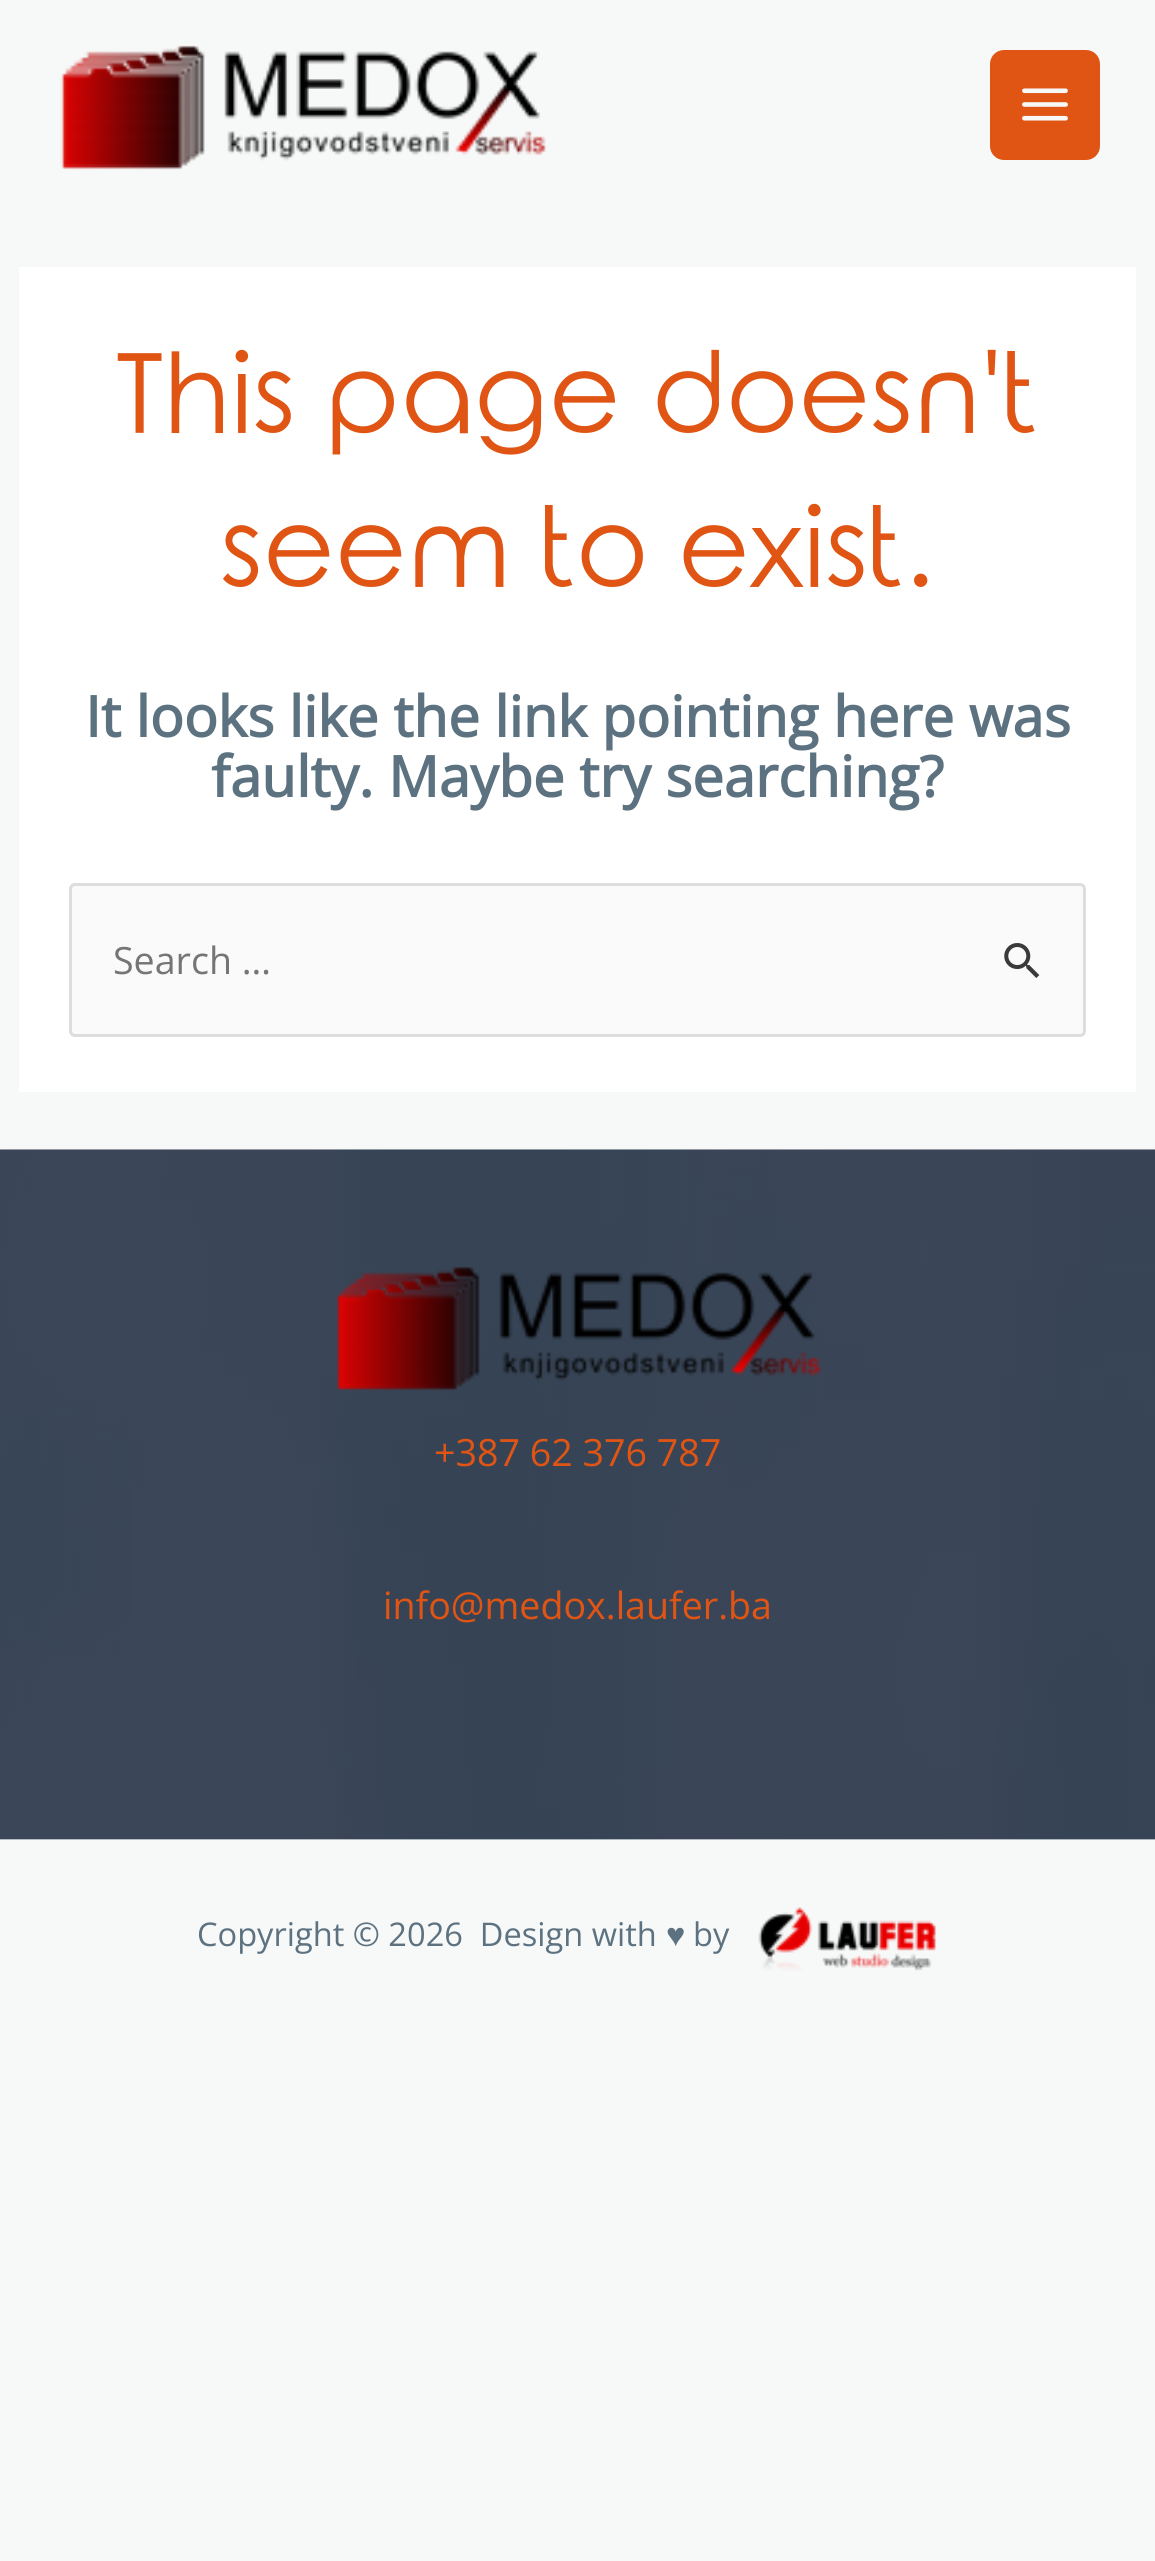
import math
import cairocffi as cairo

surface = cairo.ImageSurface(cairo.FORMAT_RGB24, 1155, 2561)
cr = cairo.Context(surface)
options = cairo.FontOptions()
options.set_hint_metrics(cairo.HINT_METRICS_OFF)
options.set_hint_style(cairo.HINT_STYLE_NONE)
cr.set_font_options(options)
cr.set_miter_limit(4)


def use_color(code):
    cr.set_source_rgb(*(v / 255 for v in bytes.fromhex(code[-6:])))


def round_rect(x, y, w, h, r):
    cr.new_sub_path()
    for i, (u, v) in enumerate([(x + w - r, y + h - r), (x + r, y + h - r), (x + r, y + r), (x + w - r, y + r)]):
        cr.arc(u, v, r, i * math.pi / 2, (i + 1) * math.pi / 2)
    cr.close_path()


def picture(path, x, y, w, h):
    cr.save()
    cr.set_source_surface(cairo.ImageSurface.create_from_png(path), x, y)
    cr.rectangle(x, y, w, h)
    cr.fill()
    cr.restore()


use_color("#f7f8f8")
cr.paint()
picture("img1.png", 60, 45, 486, 125)
use_color("#e05414")
round_rect(990, 50, 110, 110, 14)
cr.fill()
picture("img2.png", 1022, 88, 46, 33)
use_color("#ffffff")
cr.rectangle(19, 267, 1117, 825)
cr.fill()
cr.select_font_face("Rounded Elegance")
cr.set_font_size(110)
use_color("#e05414")
cr.move_to(116, 436)
cr.show_text("This page doesn't")
cr.move_to(220, 590)
cr.show_text("seem to exist.")
cr.select_font_face("Open Sans", cairo.FONT_SLANT_NORMAL, cairo.FONT_WEIGHT_BOLD)
cr.set_font_size(56.4)
use_color("#5d7280")
cr.move_to(85, 737)
cr.show_text("It looks like the link pointing here was")
cr.move_to(211, 797)
cr.show_text("faulty. Maybe try searching?")
use_color("#fafafa")
round_rect(70.5, 884.5, 1014, 151, 4.5)
cr.fill_preserve()
use_color("#dddddd")
cr.set_line_width(3)
cr.stroke()
cr.select_font_face("Open Sans")
cr.set_font_size(37.6)
use_color("#757575")
cr.move_to(113, 974)
cr.show_text("Search …")
picture("img3.png", 1004, 943, 36, 35)
picture("img4.png", 0, 1149, 1155, 691)
picture("img5.png", 335, 1267, 486, 124)
use_color("#e05414")
cr.move_to(434, 1466)
cr.show_text("+387 62 376 787")
cr.move_to(383, 1619)
cr.show_text("info@medox.laufer.ba")
cr.set_font_size(32.6)
use_color("#5d7280")
cr.move_to(197, 1946)
cr.show_text("Copyright © 2026  Design with")
cr.select_font_face("Liberation Sans")
cr.move_to(666, 1946)
cr.show_text("♥")
cr.select_font_face("Open Sans")
cr.move_to(693, 1946)
cr.show_text("by")
picture("img6.png", 758, 1907, 178, 64)
surface.write_to_png("result.png")
